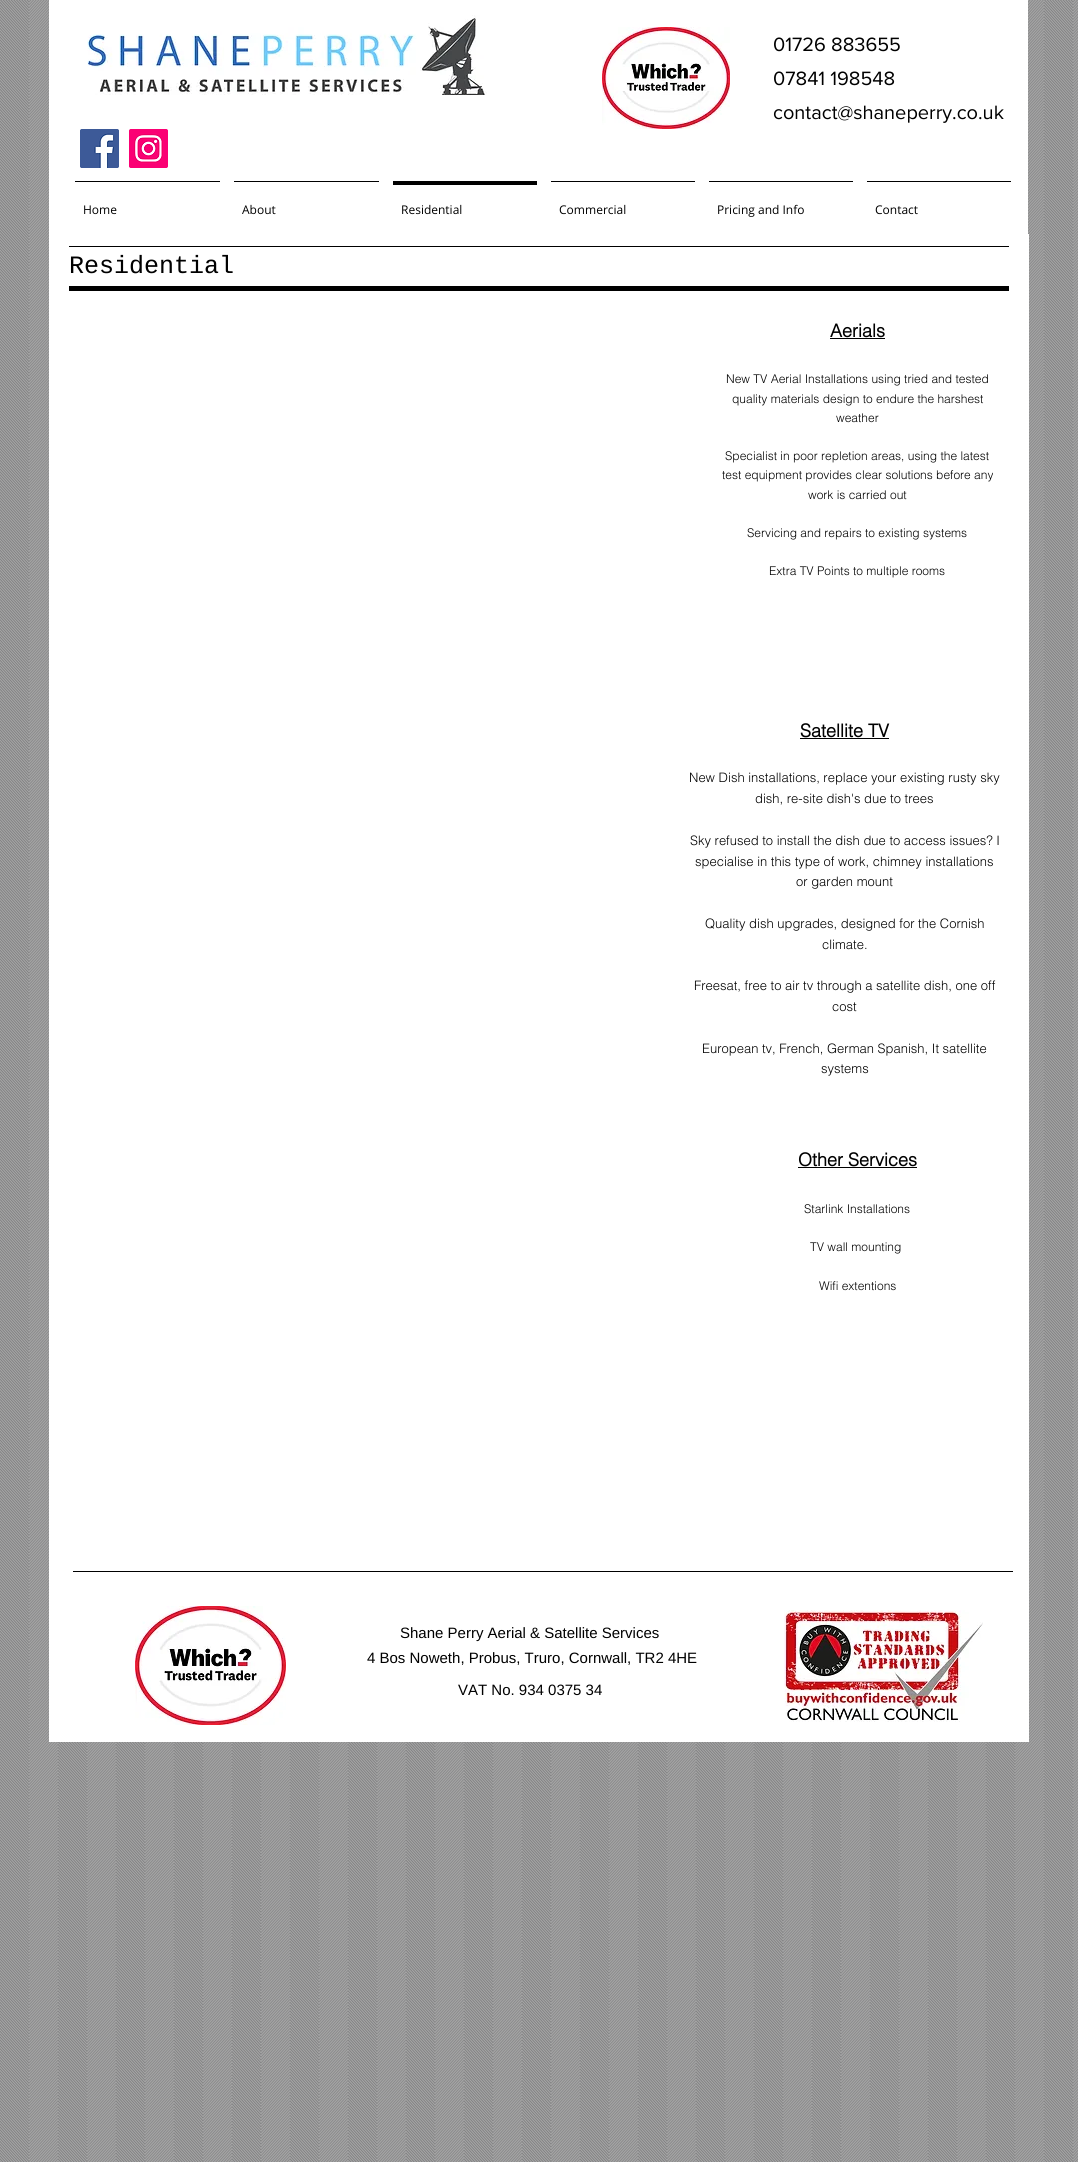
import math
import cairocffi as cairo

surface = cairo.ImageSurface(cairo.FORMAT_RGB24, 1078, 2162)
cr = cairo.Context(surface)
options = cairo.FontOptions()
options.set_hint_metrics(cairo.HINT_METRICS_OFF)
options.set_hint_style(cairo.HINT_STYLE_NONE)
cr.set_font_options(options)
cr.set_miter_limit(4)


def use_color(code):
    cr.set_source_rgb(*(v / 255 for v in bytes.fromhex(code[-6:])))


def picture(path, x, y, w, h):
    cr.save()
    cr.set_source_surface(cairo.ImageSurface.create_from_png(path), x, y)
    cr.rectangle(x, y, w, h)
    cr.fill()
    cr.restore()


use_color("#a7a7a7")
cr.paint()
picture("img1.png", 0, 0, 1078, 2162)
use_color("#ffffff")
cr.rectangle(49, 0, 979, 234)
cr.fill()
picture("img2.png", 87, 15, 400, 80)
picture("img3.png", 602, 27, 128, 102)
cr.select_font_face("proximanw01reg")
cr.set_font_size(20)
use_color("#000000")
cr.move_to(773, 51)
cr.show_text("01726 883655")
cr.move_to(773, 85)
cr.show_text("07841 198548")
cr.move_to(773, 119)
cr.show_text("contact@shaneperry.co.uk")
cr.rectangle(75, 181, 145, 1)
cr.fill()
cr.select_font_face("Open Sans")
cr.set_font_size(12)
cr.move_to(83, 214)
cr.show_text("Home")
cr.rectangle(234, 181, 145, 1)
cr.fill()
cr.move_to(242, 214)
cr.show_text("About")
cr.rectangle(393, 181, 144, 4)
cr.fill()
cr.move_to(401, 214)
cr.show_text("Residential")
cr.rectangle(551, 181, 144, 1)
cr.fill()
cr.move_to(559, 214)
cr.show_text("Commercial")
cr.rectangle(709, 181, 144, 1)
cr.fill()
cr.move_to(717, 214)
cr.show_text("Pricing and Info")
cr.rectangle(867, 181, 144, 1)
cr.fill()
cr.move_to(875, 214)
cr.show_text("Contact")
picture("img4.png", 80, 129, 39, 39)
picture("img5.png", 129, 129, 39, 39)
use_color("#ffffff")
cr.rectangle(49, 234, 980, 1508)
cr.fill()
use_color("#000000")
cr.rectangle(69, 246, 940, 1)
cr.fill()
cr.select_font_face("Liberation Mono")
cr.set_font_size(25)
cr.move_to(69, 273)
cr.show_text("Residential")
cr.rectangle(69, 286, 940, 5)
cr.fill()
cr.select_font_face("helvetica", cairo.FONT_SLANT_NORMAL, cairo.FONT_WEIGHT_BOLD)
cr.set_font_size(18)
cr.move_to(830, 337)
cr.show_text("Aerials")
cr.rectangle(830, 338, 55, 1)
cr.fill()
cr.select_font_face("helvetica Light")
cr.set_font_size(12)
cr.move_to(726, 383)
cr.show_text("New TV Aerial Installations using tried and tested")
cr.move_to(732, 403)
cr.show_text("quality materials design to endure the harshest")
cr.move_to(836, 422)
cr.show_text("weather")
cr.move_to(725, 460)
cr.show_text("Specialist in poor repletion areas, using the latest")
cr.move_to(722, 479)
cr.show_text("test equipment provides clear solutions before any")
cr.move_to(808, 499)
cr.show_text("work is carried out")
cr.move_to(747, 537)
cr.show_text("Servicing and repairs to existing systems")
cr.move_to(769, 575)
cr.show_text("Extra TV Points to multiple rooms")
cr.select_font_face("helvetica", cairo.FONT_SLANT_NORMAL, cairo.FONT_WEIGHT_BOLD)
cr.set_font_size(18)
cr.move_to(800, 737)
cr.show_text("Satellite TV")
cr.rectangle(800, 738, 89, 1)
cr.fill()
cr.select_font_face("helvetica Light")
cr.set_font_size(13)
cr.move_to(689, 782)
cr.show_text("New Dish installations, replace your existing rusty sky")
cr.move_to(755, 803)
cr.show_text("dish, re-site dish's due to trees")
cr.move_to(690, 845)
cr.show_text("Sky refused to install the dish due to access issues? I")
cr.move_to(695, 866)
cr.show_text("specialise in this type of work, chimney installations")
cr.move_to(796, 886)
cr.show_text("or garden mount")
cr.move_to(705, 928)
cr.show_text("Quality dish upgrades, designed for the Cornish")
cr.move_to(822, 949)
cr.show_text("climate.")
cr.move_to(694, 990)
cr.show_text("Freesat, free to air tv through a satellite dish, one off")
cr.move_to(832, 1011)
cr.show_text("cost")
cr.move_to(702, 1053)
cr.show_text("European tv, French, German Spanish, It satellite")
cr.move_to(821, 1073)
cr.show_text("systems")
cr.select_font_face("helvetica", cairo.FONT_SLANT_NORMAL, cairo.FONT_WEIGHT_BOLD)
cr.set_font_size(18)
cr.move_to(798, 1166)
cr.show_text("Other Services")
cr.rectangle(798, 1167, 119, 1)
cr.fill()
cr.select_font_face("helvetica Light")
cr.set_font_size(12)
cr.move_to(804, 1213)
cr.show_text("Starlink Installations")
cr.move_to(810, 1251)
cr.show_text("TV wall mounting")
cr.move_to(819, 1290)
cr.show_text("Wifi extentions")
cr.rectangle(73, 1571, 940, 1)
cr.fill()
picture("img6.png", 135, 1606, 151, 119)
cr.select_font_face("Liberation Sans")
cr.set_font_size(15)
cr.move_to(400, 1638)
cr.show_text("Shane Perry Aerial & Satellite Services")
cr.move_to(367, 1663)
cr.show_text("4 Bos Noweth, Probus, Truro, Cornwall, TR2 4HE")
cr.move_to(458, 1695)
cr.show_text("VAT No. 934 0375 34")
picture("img7.png", 784, 1610, 199, 112)
surface.write_to_png("result.png")
